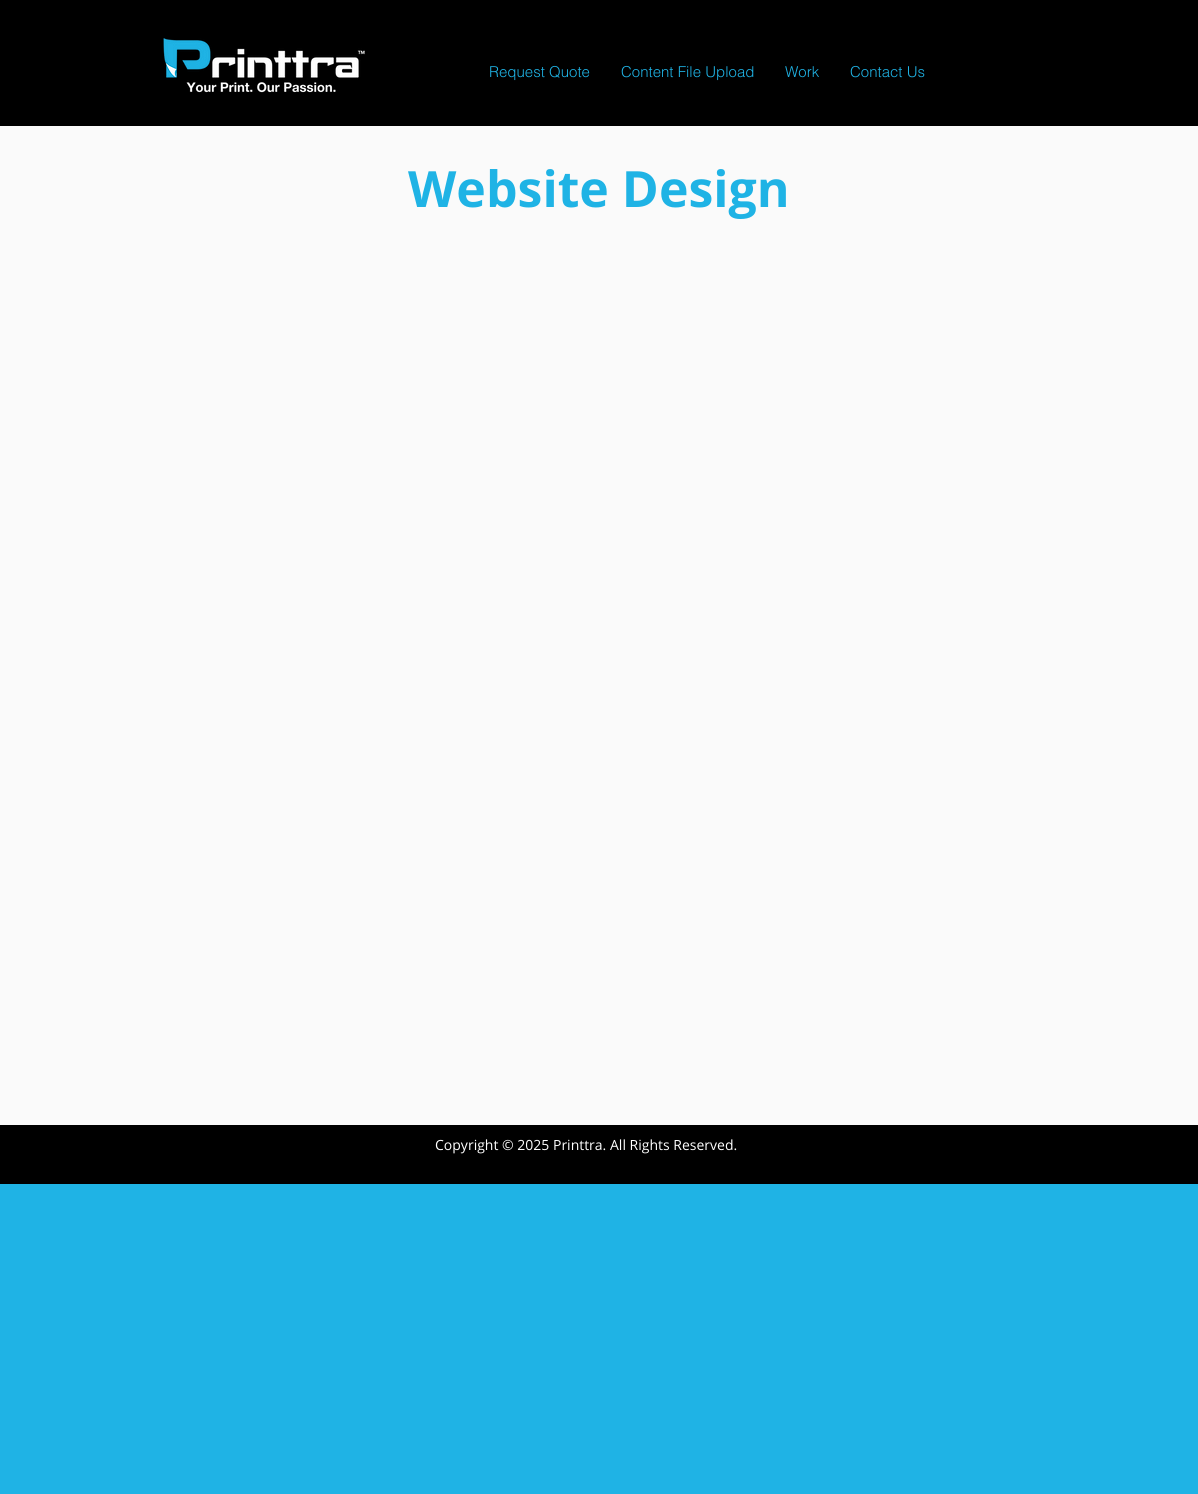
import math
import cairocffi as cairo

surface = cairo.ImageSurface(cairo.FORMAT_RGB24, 1198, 1494)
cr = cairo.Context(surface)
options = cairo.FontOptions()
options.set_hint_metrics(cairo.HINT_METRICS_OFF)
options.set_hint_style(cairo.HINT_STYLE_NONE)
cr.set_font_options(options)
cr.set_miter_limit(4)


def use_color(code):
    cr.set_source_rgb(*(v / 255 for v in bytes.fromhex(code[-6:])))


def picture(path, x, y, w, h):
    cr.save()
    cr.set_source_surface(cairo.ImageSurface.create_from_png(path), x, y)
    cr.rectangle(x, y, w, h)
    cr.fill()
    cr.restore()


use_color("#1fb3e5")
cr.paint()
use_color("#000000")
cr.rectangle(0, 0, 1198, 1184)
cr.fill()
picture("img1.png", 163, 38, 202, 55)
cr.select_font_face("helvetica Light")
cr.set_font_size(15)
use_color("#1fb3e5")
cr.move_to(489, 77)
cr.show_text("Request Quote")
cr.move_to(621, 77)
cr.show_text("Content File Upload")
cr.move_to(785, 77)
cr.show_text("Work")
cr.move_to(850, 77)
cr.show_text("Contact Us")
use_color("#fafafa")
cr.rectangle(0, 126, 1198, 999)
cr.fill()
cr.select_font_face("Open Sans", cairo.FONT_SLANT_NORMAL, cairo.FONT_WEIGHT_BOLD)
cr.set_font_size(50)
use_color("#1fb3e5")
cr.move_to(408, 207)
cr.show_text("Website Design")
cr.select_font_face("Open Sans")
cr.set_font_size(14)
use_color("#ffffff")
cr.move_to(435, 1150)
cr.show_text("Copyright © 2025 Printtra. All Rights Reserved.")
surface.write_to_png("result.png")
